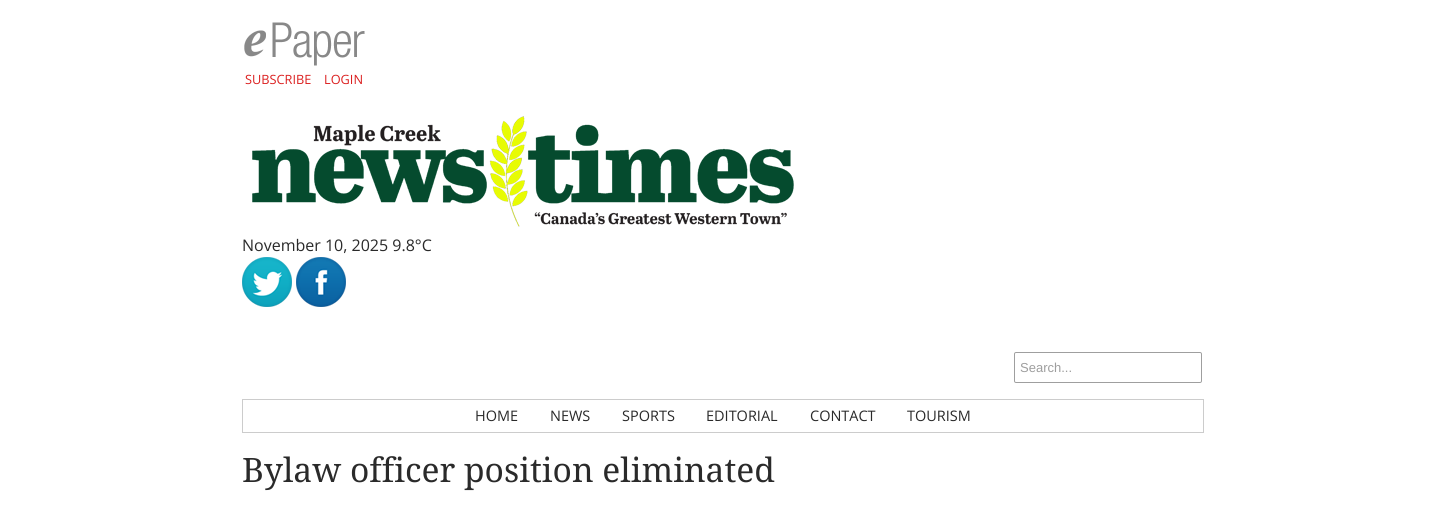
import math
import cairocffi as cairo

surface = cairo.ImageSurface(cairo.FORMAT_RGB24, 1443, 507)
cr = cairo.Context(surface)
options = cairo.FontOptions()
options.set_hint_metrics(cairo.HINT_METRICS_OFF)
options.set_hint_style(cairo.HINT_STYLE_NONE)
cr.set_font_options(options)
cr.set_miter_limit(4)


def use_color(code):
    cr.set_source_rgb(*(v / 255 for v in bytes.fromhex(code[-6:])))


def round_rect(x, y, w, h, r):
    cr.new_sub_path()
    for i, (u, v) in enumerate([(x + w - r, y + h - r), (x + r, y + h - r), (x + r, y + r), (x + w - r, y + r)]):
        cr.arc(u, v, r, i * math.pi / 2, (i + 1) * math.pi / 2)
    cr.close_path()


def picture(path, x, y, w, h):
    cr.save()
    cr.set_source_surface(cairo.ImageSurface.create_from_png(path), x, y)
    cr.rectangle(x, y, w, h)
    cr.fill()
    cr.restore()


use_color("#ffffff")
cr.paint()
picture("img1.png", 244, 22, 121, 44)
cr.select_font_face("Open Sans")
cr.set_font_size(12.75)
use_color("#db1f1f")
cr.move_to(245, 84)
cr.show_text("SUBSCRIBE")
cr.move_to(324, 84)
cr.show_text("LOGIN")
picture("img2.png", 252, 116, 542, 111)
cr.set_font_size(16)
use_color("#2a2a2a")
cr.move_to(242, 251)
cr.show_text("November 10, 2025 9.8°C")
picture("img3.png", 242, 257, 50, 50)
picture("img4.png", 296, 257, 50, 50)
round_rect(1014.5, 352.5, 187, 30, 1.5)
use_color("#9f9f9f")
cr.set_line_width(1)
cr.stroke()
cr.select_font_face("Liberation Sans")
cr.set_font_size(13)
use_color("#9e9e9e")
cr.move_to(1020, 372)
cr.show_text("Search...")
cr.rectangle(242.5, 399.5, 961, 33)
use_color("#cccccc")
cr.stroke()
cr.select_font_face("Open Sans")
cr.set_font_size(14.5)
use_color("#2a2a2a")
cr.move_to(475, 421)
cr.show_text("HOME")
cr.move_to(550, 421)
cr.show_text("NEWS")
cr.move_to(622, 421)
cr.show_text("SPORTS")
cr.move_to(706, 421)
cr.show_text("EDITORIAL")
cr.move_to(810, 421)
cr.show_text("CONTACT")
cr.move_to(907, 421)
cr.show_text("TOURISM")
cr.select_font_face("Droid Serif")
cr.set_font_size(33.6)
cr.move_to(242, 482)
cr.show_text("Bylaw officer position eliminated")
surface.write_to_png("result.png")
